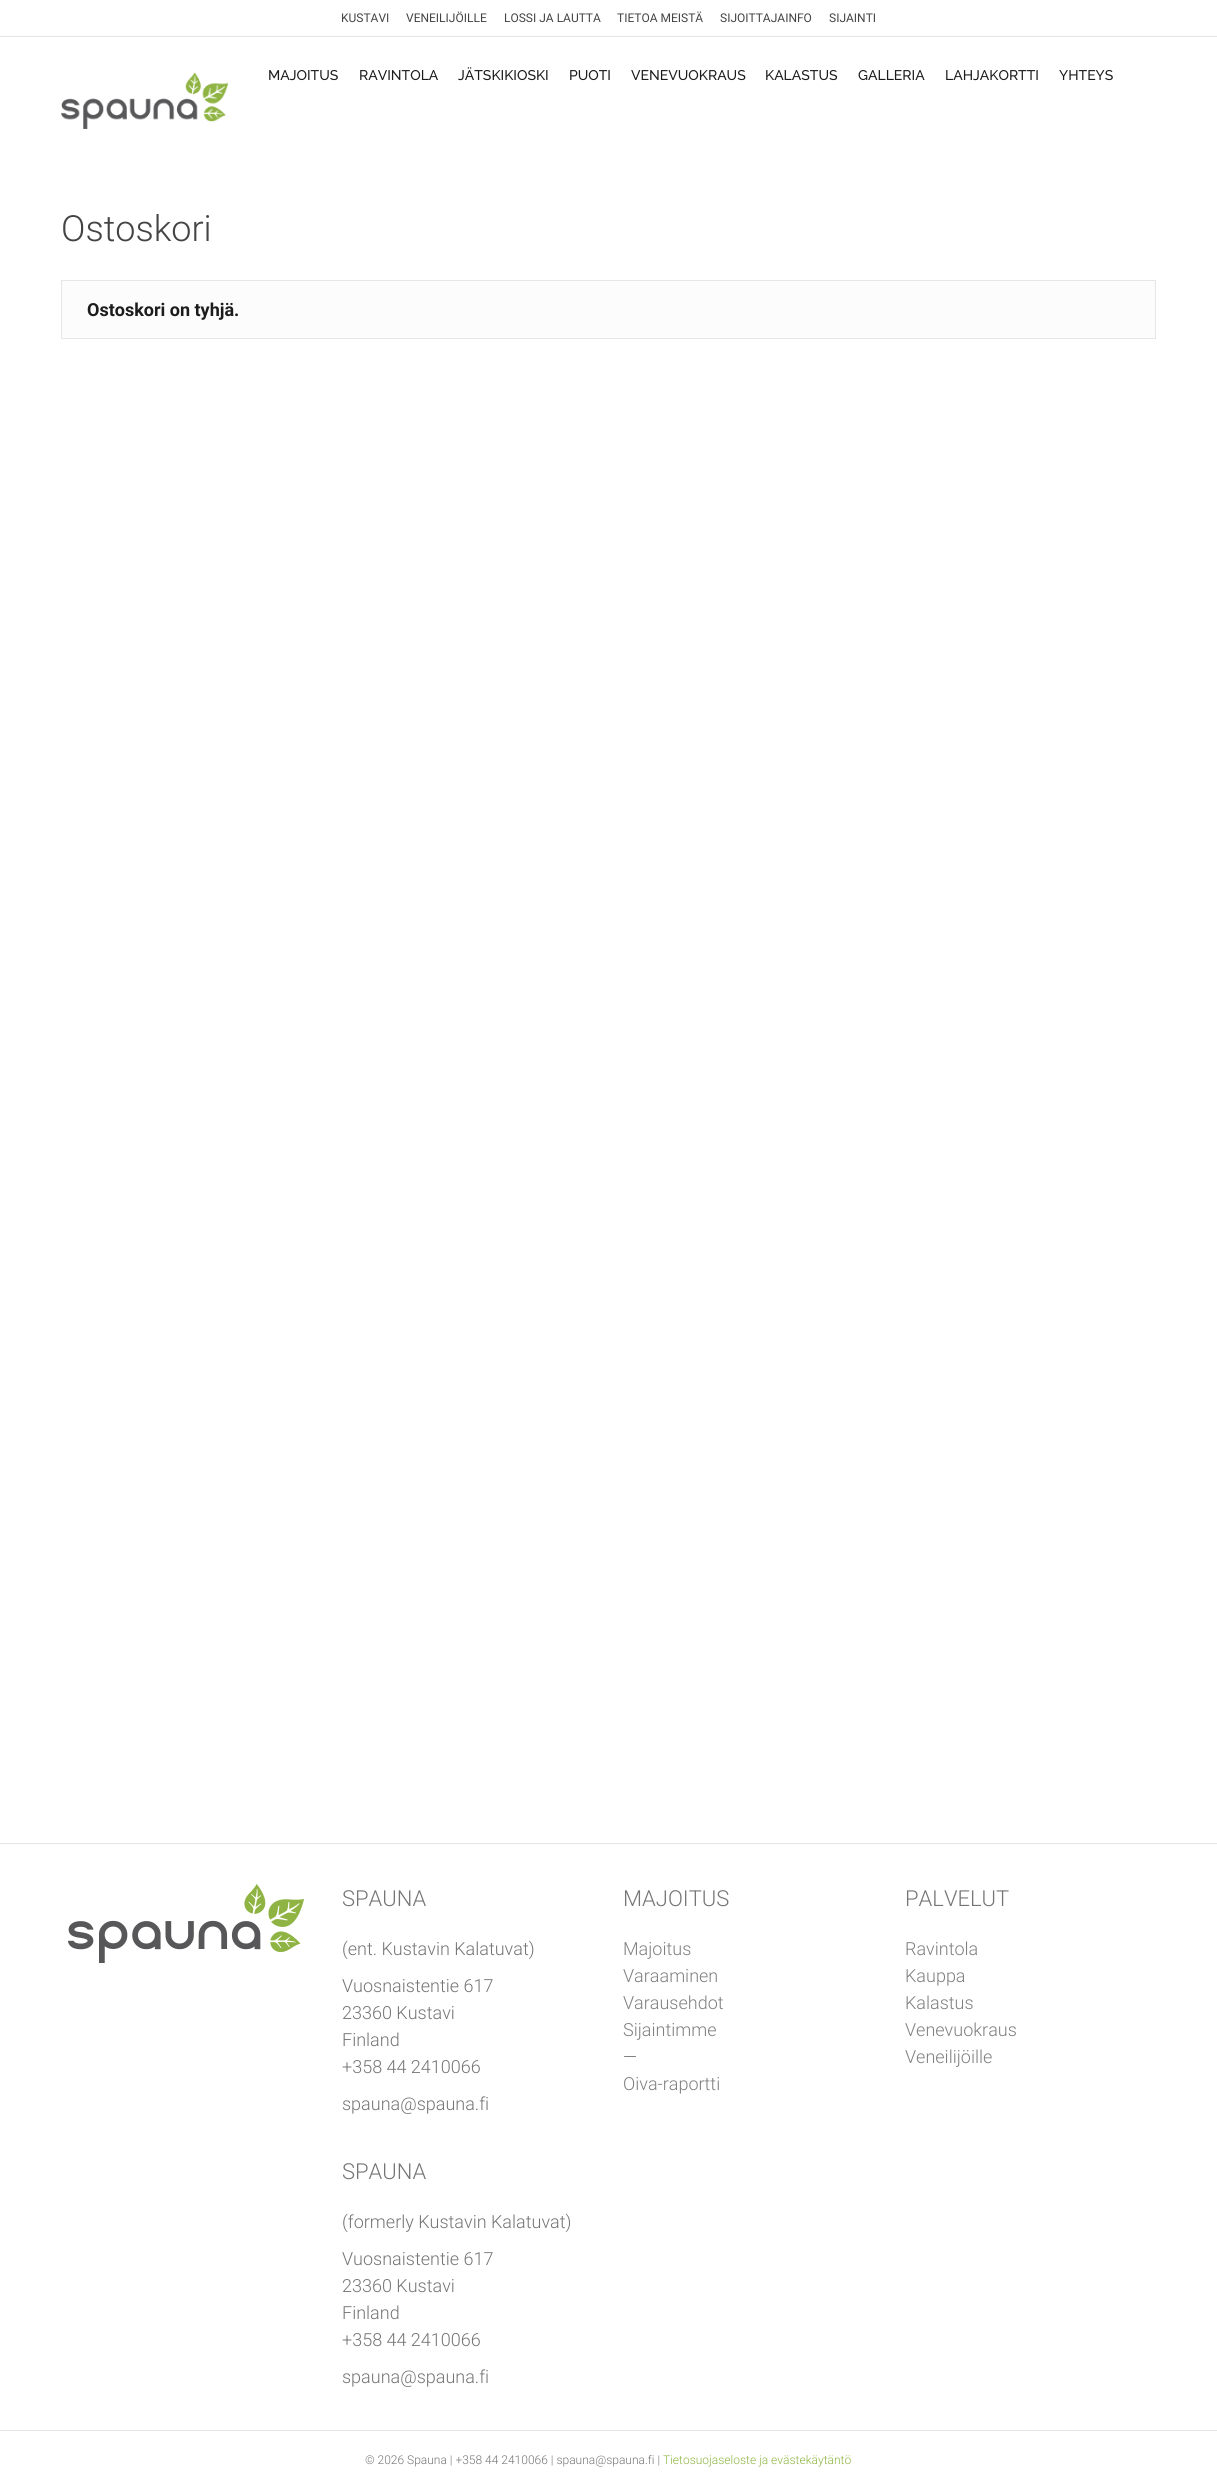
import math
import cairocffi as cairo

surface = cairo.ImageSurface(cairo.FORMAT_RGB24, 1217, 2489)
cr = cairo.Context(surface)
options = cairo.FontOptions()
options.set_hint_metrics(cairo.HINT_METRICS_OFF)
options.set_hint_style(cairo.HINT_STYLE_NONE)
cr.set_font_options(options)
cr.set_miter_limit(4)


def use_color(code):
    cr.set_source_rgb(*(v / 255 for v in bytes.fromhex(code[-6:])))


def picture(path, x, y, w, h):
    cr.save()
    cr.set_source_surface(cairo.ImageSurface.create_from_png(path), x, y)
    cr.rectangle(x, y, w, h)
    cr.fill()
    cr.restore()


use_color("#ffffff")
cr.paint()
use_color("#e6e6e6")
cr.rectangle(0, 36, 1217, 1)
cr.fill()
cr.select_font_face("Roboto")
cr.set_font_size(12)
use_color("#444444")
cr.move_to(341, 22)
cr.show_text("KUSTAVI")
cr.move_to(406, 22)
cr.show_text("VENEILIJÖILLE")
cr.move_to(504, 22)
cr.show_text("LOSSI JA LAUTTA")
cr.move_to(617, 22)
cr.show_text("TIETOA MEISTÄ")
cr.move_to(720, 22)
cr.show_text("SIJOITTAJAINFO")
cr.move_to(829, 22)
cr.show_text("SIJAINTI")
picture("img1.png", 61, 72, 167, 57)
cr.select_font_face("Raleway Thin")
cr.set_font_size(14)
use_color("#1c1c1c")
cr.move_to(268, 80)
cr.show_text("MAJOITUS")
cr.move_to(359, 80)
cr.show_text("RAVINTOLA")
cr.move_to(458, 80)
cr.show_text("JÄTSKIKIOSKI")
cr.move_to(569, 80)
cr.show_text("PUOTI")
cr.move_to(631, 80)
cr.show_text("VENEVUOKRAUS")
cr.move_to(765, 80)
cr.show_text("KALASTUS")
cr.move_to(858, 80)
cr.show_text("GALLERIA")
cr.move_to(945, 80)
cr.show_text("LAHJAKORTTI")
cr.move_to(1059, 80)
cr.show_text("YHTEYS")
cr.select_font_face("Roboto Light")
cr.set_font_size(36)
use_color("#444444")
cr.move_to(61, 241)
cr.show_text("Ostoskori")
use_color("#fcfcfc")
cr.rectangle(61.5, 280.5, 1094, 58)
cr.fill_preserve()
use_color("#e6e6e6")
cr.set_line_width(1)
cr.stroke()
cr.select_font_face("Roboto", cairo.FONT_SLANT_NORMAL, cairo.FONT_WEIGHT_BOLD)
cr.set_font_size(18)
use_color("#1c1c1c")
cr.move_to(87, 316)
cr.show_text("Ostoskori on tyhjä.")
use_color("#e6e6e6")
cr.rectangle(0, 1843, 1217, 1)
cr.fill()
picture("img2.png", 68, 1884, 236, 79)
cr.select_font_face("Roboto Light")
cr.set_font_size(22)
use_color("#757575")
cr.move_to(342, 1906)
cr.show_text("SPAUNA")
cr.set_font_size(18)
cr.move_to(342, 1955)
cr.show_text("(ent. Kustavin Kalatuvat)")
cr.move_to(342, 1992)
cr.show_text("Vuosnaistentie 617")
cr.move_to(342, 2019)
cr.show_text("23360 Kustavi")
cr.move_to(342, 2046)
cr.show_text("Finland")
cr.move_to(342, 2073)
cr.show_text("+358 44 2410066")
cr.move_to(342, 2110)
cr.show_text("spauna@spauna.fi")
cr.set_font_size(22)
cr.move_to(342, 2179)
cr.show_text("SPAUNA")
cr.set_font_size(18)
cr.move_to(342, 2228)
cr.show_text("(formerly Kustavin Kalatuvat)")
cr.move_to(342, 2265)
cr.show_text("Vuosnaistentie 617")
cr.move_to(342, 2292)
cr.show_text("23360 Kustavi")
cr.move_to(342, 2319)
cr.show_text("Finland")
cr.move_to(342, 2346)
cr.show_text("+358 44 2410066")
cr.move_to(342, 2383)
cr.show_text("spauna@spauna.fi")
cr.set_font_size(22)
cr.move_to(623, 1906)
cr.show_text("MAJOITUS")
cr.set_font_size(18)
use_color("#808080")
cr.move_to(623, 1955)
cr.show_text("Majoitus")
cr.move_to(623, 1982)
cr.show_text("Varaaminen")
cr.move_to(623, 2009)
cr.show_text("Varausehdot")
cr.move_to(623, 2036)
cr.show_text("Sijaintimme")
use_color("#757575")
cr.move_to(623, 2063)
cr.show_text("—")
use_color("#808080")
cr.move_to(623, 2090)
cr.show_text("Oiva-raportti")
cr.set_font_size(22)
use_color("#757575")
cr.move_to(905, 1906)
cr.show_text("PALVELUT")
cr.set_font_size(18)
use_color("#808080")
cr.move_to(905, 1955)
cr.show_text("Ravintola")
cr.move_to(905, 1982)
cr.show_text("Kauppa")
cr.move_to(905, 2009)
cr.show_text("Kalastus")
cr.move_to(905, 2036)
cr.show_text("Venevuokraus")
cr.move_to(905, 2063)
cr.show_text("Veneilijöille")
use_color("#e6e6e6")
cr.rectangle(0, 2430, 1217, 1)
cr.fill()
cr.set_font_size(12)
use_color("#757575")
cr.move_to(365, 2464)
cr.show_text("© 2026 Spauna | +358 44 2410066 | spauna@spauna.fi |")
use_color("#8cb53f")
cr.move_to(663, 2464)
cr.show_text("Tietosuojaseloste ja evästekäytäntö")
surface.write_to_png("result.png")
